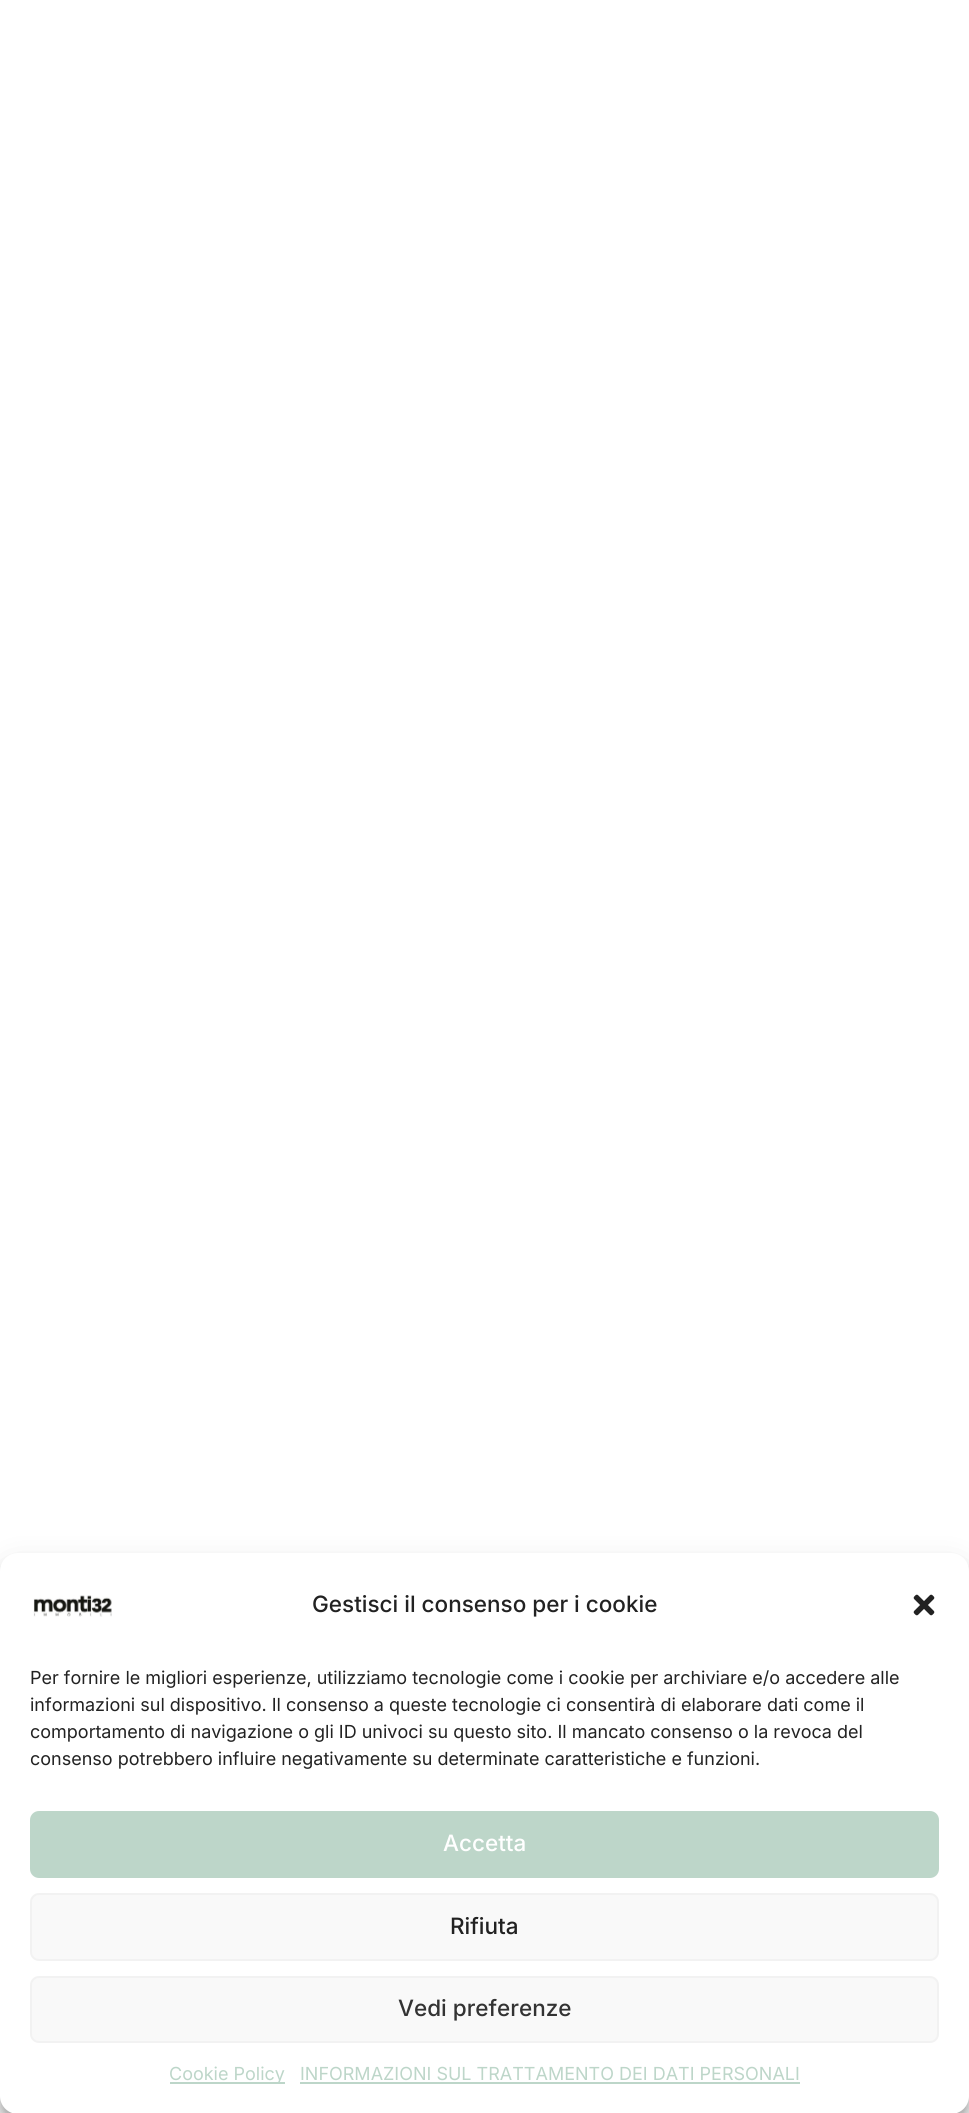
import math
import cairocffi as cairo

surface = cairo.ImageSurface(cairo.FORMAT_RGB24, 969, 2113)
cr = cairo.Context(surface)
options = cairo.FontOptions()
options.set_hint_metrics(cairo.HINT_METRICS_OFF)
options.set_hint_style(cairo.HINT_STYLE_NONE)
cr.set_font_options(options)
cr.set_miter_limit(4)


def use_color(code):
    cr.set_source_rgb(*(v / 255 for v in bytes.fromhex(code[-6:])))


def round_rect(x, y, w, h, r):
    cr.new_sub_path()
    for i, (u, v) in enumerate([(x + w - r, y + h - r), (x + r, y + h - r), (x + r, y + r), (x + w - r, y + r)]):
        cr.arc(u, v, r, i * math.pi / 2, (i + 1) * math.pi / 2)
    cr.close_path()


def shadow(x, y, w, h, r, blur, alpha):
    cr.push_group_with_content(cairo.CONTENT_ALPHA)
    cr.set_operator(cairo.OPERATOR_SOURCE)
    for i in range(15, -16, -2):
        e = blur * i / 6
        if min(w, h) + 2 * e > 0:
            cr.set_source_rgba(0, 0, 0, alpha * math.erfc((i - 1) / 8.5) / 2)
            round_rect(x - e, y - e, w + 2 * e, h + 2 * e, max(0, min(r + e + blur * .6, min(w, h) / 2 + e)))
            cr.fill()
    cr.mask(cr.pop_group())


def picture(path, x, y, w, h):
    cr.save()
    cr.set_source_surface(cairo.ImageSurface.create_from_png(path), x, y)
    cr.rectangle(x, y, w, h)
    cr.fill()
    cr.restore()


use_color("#ffffff")
cr.paint()
use_color("#000000")
shadow(0, 1562, 969, 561, 18, 4.5, 0.23)
shadow(0, 1568, 969, 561, 18, 15, 0.19)
use_color("#ffffff")
round_rect(0, 1553, 969, 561, 18)
cr.fill()
picture("img1.png", 33, 1595, 79, 22)
cr.select_font_face("Inter Medium")
cr.set_font_size(22.5)
use_color("#222222")
cr.move_to(312, 1612)
cr.show_text("Gestisci il consenso per i cookie")
picture("img2.png", 913, 1594, 22, 22)
cr.select_font_face("Inter")
cr.set_font_size(18)
cr.move_to(30, 1684)
cr.show_text("Per fornire le migliori esperienze, utilizziamo tecnologie come i cookie per archiviare e/o accedere alle")
cr.move_to(30, 1711)
cr.show_text("informazioni sul dispositivo. Il consenso a queste tecnologie ci consentirà di elaborare dati come il")
cr.move_to(30, 1738)
cr.show_text("comportamento di navigazione o gli ID univoci su questo sito. Il mancato consenso o la revoca del")
cr.move_to(30, 1765)
cr.show_text("consenso potrebbero influire negativamente su determinate caratteristiche e funzioni.")
use_color("#bdd6c9")
round_rect(31, 1812, 907, 65, 8)
cr.fill_preserve()
cr.stroke()
cr.select_font_face("Inter Medium")
cr.set_font_size(22.5)
use_color("#ffffff")
cr.move_to(443, 1851)
cr.show_text("Accetta")
use_color("#f9f9f9")
round_rect(31, 1894, 907, 66, 8)
cr.fill_preserve()
use_color("#f2f2f2")
cr.stroke()
use_color("#222222")
cr.move_to(450, 1934)
cr.show_text("Rifiuta")
use_color("#f9f9f9")
round_rect(31, 1977, 907, 65, 8)
cr.fill_preserve()
use_color("#f2f2f2")
cr.stroke()
use_color("#333333")
cr.move_to(398, 2016)
cr.show_text("Vedi preferenze")
use_color("#bdd6c9")
cr.rectangle(170, 2082, 115, 2)
cr.fill()
cr.select_font_face("Inter")
cr.set_font_size(18)
cr.move_to(169, 2080)
cr.show_text("Cookie Policy")
cr.move_to(300, 2080)
cr.show_text("INFORMAZIONI SUL TRATTAMENTO DEI DATI PERSONALI")
cr.rectangle(300, 2082, 500, 2)
cr.fill()
surface.write_to_png("result.png")
